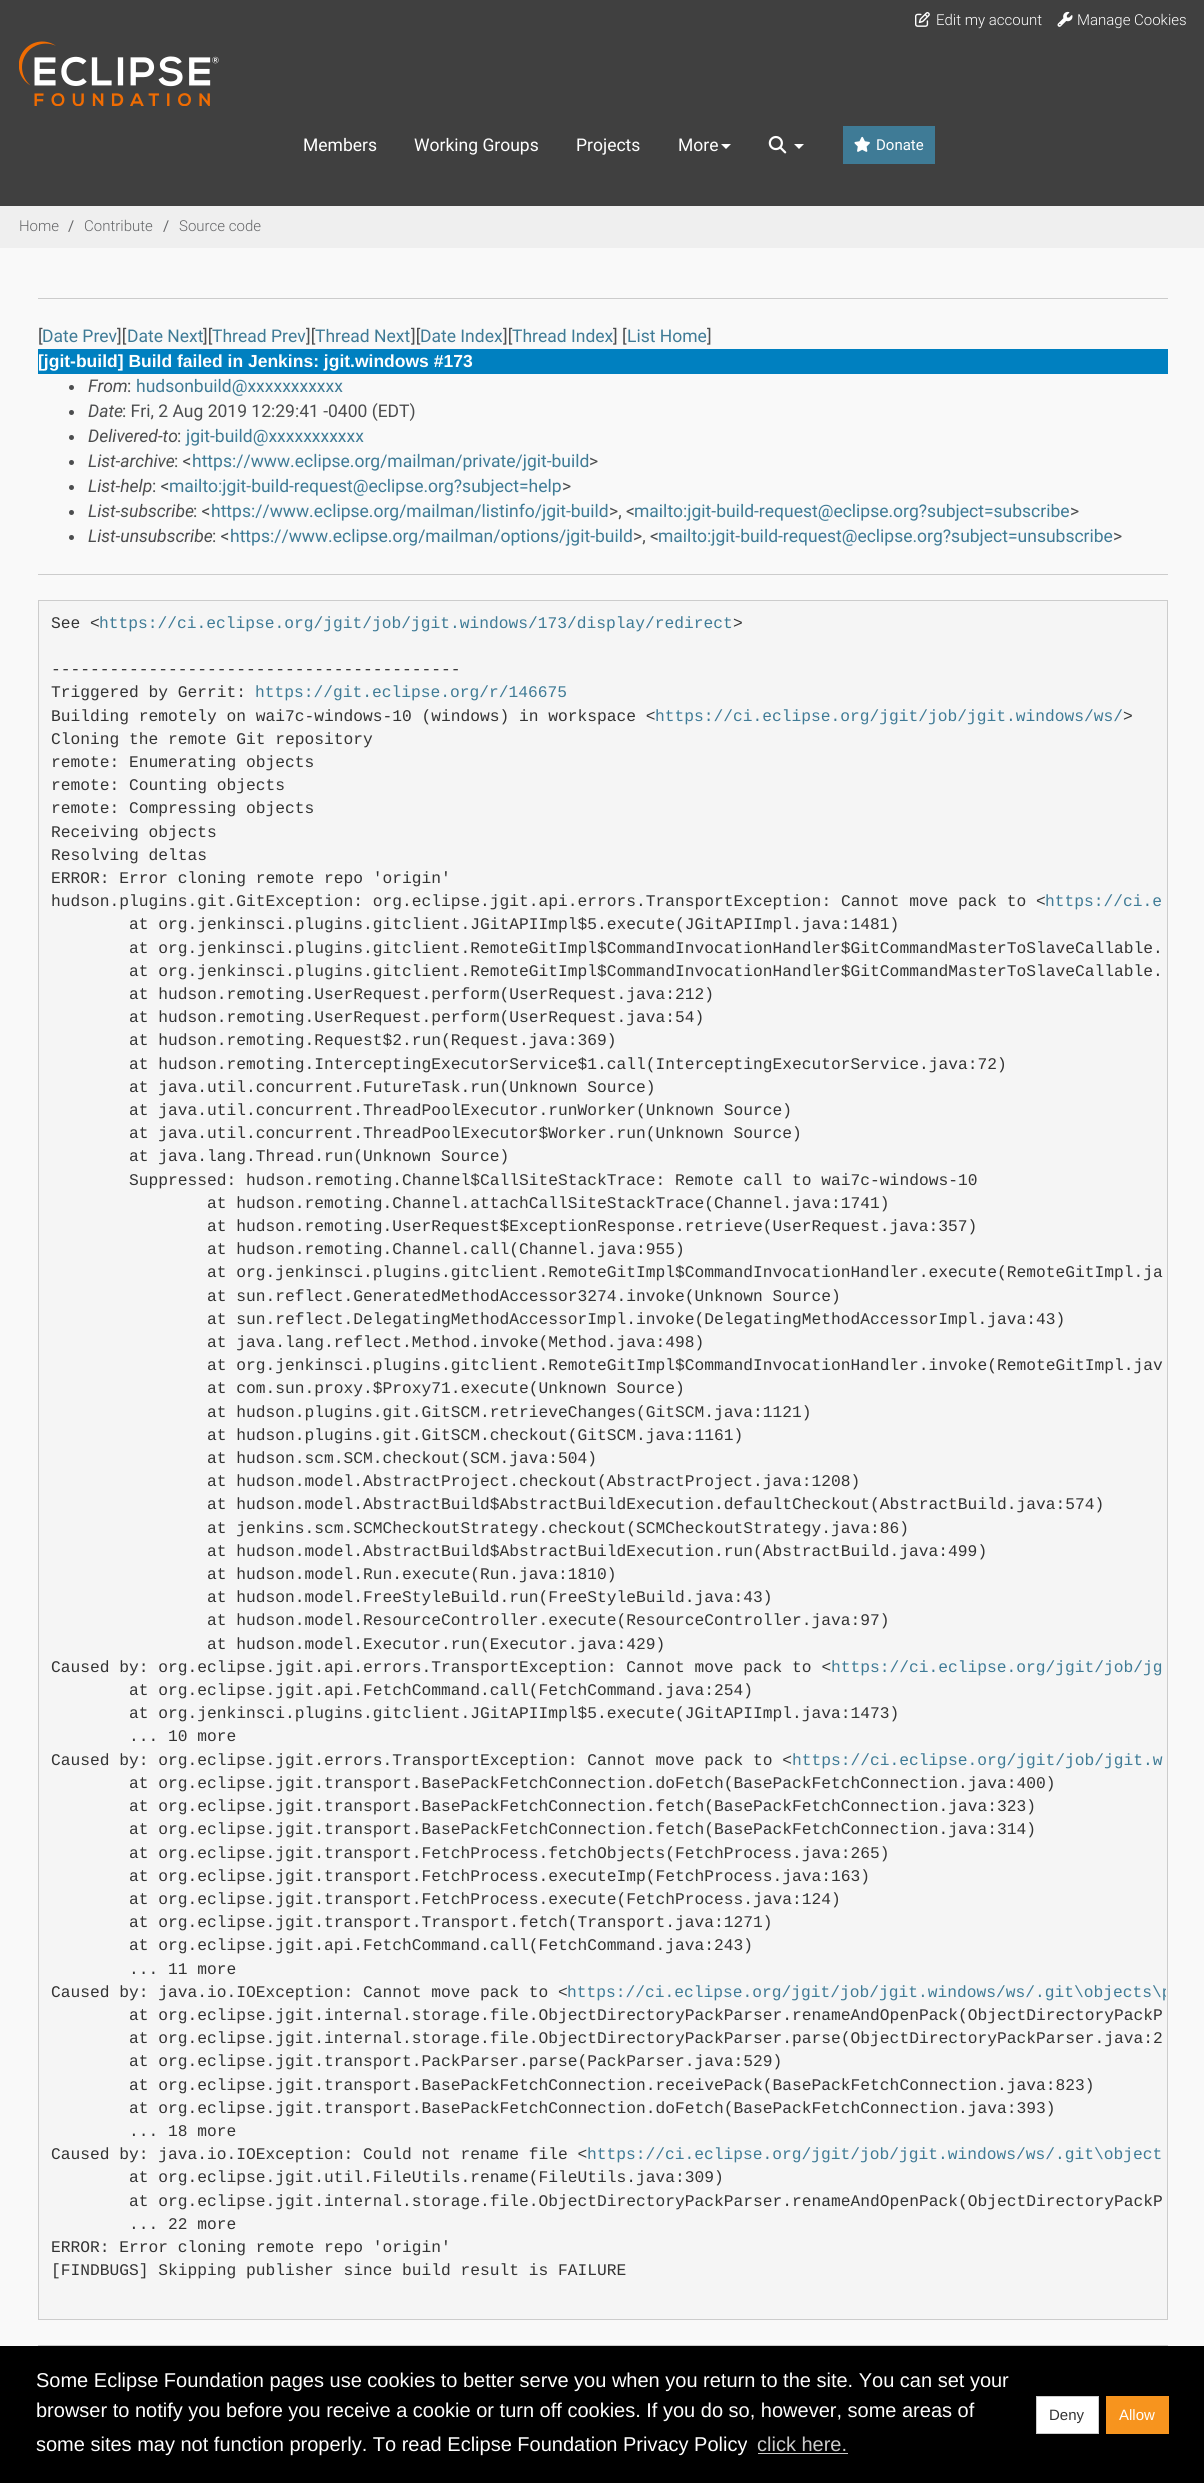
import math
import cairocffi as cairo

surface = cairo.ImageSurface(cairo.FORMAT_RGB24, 1204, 2483)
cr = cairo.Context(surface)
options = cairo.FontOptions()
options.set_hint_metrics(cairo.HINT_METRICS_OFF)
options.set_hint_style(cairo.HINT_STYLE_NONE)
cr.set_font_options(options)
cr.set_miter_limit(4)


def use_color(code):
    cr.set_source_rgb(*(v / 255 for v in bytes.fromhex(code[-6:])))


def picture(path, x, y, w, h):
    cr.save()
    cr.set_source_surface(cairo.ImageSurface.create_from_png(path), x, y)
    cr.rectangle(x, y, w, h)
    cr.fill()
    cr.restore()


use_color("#f9f9f9")
cr.paint()
use_color("#404040")
cr.rectangle(0, 0, 1204, 206)
cr.fill()
picture("img1.png", 915, 12, 15, 15)
cr.select_font_face("Roboto Light")
cr.set_font_size(15)
use_color("#ffffff")
cr.move_to(936, 25)
cr.show_text("Edit my account")
picture("img2.png", 1057, 11, 16, 16)
cr.move_to(1077, 25)
cr.show_text("Manage Cookies")
picture("img3.png", 19, 41, 200, 65)
cr.select_font_face("Roboto")
cr.set_font_size(17.5)
cr.move_to(303, 151)
cr.show_text("Members")
cr.move_to(414, 151)
cr.show_text("Working Groups")
cr.move_to(576, 151)
cr.show_text("Projects")
cr.move_to(678, 151)
cr.show_text("More")
cr.new_path()
cr.move_to(721, 144)
cr.line_to(731, 144)
cr.line_to(726, 149)
cr.close_path()
cr.fill()
picture("img4.png", 768, 135, 19, 19)
cr.new_path()
cr.move_to(794, 144)
cr.line_to(804, 144)
cr.line_to(799, 149)
cr.close_path()
cr.fill()
use_color("#3f7b96")
cr.rectangle(843, 126, 92, 38)
cr.fill()
picture("img5.png", 854, 136, 16, 16)
cr.set_font_size(15)
use_color("#ffffff")
cr.move_to(876, 150)
cr.show_text("Donate")
use_color("#efefef")
cr.rectangle(0, 206, 1204, 42)
cr.fill()
cr.select_font_face("Roboto Light")
use_color("#656668")
cr.move_to(19, 231)
cr.show_text("Home")
cr.select_font_face("Roboto")
cr.move_to(68, 231)
cr.show_text("/")
cr.select_font_face("Roboto Light")
cr.move_to(84, 231)
cr.show_text("Contribute")
cr.select_font_face("Roboto")
cr.move_to(163, 231)
cr.show_text("/")
cr.select_font_face("Roboto Light")
cr.move_to(179, 231)
cr.show_text("Source code")
use_color("#cccccc")
cr.rectangle(38, 298, 1130, 1)
cr.fill()
cr.select_font_face("Roboto")
cr.set_font_size(17.5)
use_color("#4c4d4e")
cr.move_to(38, 342)
cr.show_text("[")
use_color("#3f7b96")
cr.move_to(42, 342)
cr.show_text("Date Prev")
use_color("#4c4d4e")
cr.move_to(117, 342)
cr.show_text("][")
use_color("#3f7b96")
cr.move_to(127, 342)
cr.show_text("Date Next")
use_color("#4c4d4e")
cr.move_to(203, 342)
cr.show_text("][")
use_color("#3f7b96")
cr.move_to(212, 342)
cr.show_text("Thread Prev")
use_color("#4c4d4e")
cr.move_to(306, 342)
cr.show_text("][")
use_color("#3f7b96")
cr.move_to(315, 342)
cr.show_text("Thread Next")
use_color("#4c4d4e")
cr.move_to(411, 342)
cr.show_text("][")
use_color("#3f7b96")
cr.move_to(420, 342)
cr.show_text("Date Index")
use_color("#4c4d4e")
cr.move_to(503, 342)
cr.show_text("][")
use_color("#3f7b96")
cr.move_to(512, 342)
cr.show_text("Thread Index")
use_color("#4c4d4e")
cr.move_to(613, 342)
cr.show_text("] [")
use_color("#3f7b96")
cr.move_to(627, 342)
cr.show_text("List Home")
use_color("#4c4d4e")
cr.move_to(707, 342)
cr.show_text("]")
use_color("#0080c0")
cr.rectangle(38, 349, 1130, 25)
cr.fill()
cr.select_font_face("Liberation Sans", cairo.FONT_SLANT_NORMAL, cairo.FONT_WEIGHT_BOLD)
use_color("#ffffff")
cr.move_to(38, 367)
cr.show_text("[jgit-build] Build failed in Jenkins: jgit.windows #173")
use_color("#4c4d4e")
cr.new_path()
cr.arc(71.5, 387.5, 2.5, 0, 2 * math.pi)
cr.fill()
cr.select_font_face("Roboto", cairo.FONT_SLANT_ITALIC)
cr.move_to(88, 392)
cr.show_text("From")
cr.select_font_face("Roboto")
cr.move_to(127, 392)
cr.show_text(":")
use_color("#3f7b96")
cr.move_to(136, 392)
cr.show_text("hudsonbuild@xxxxxxxxxxx")
use_color("#4c4d4e")
cr.new_path()
cr.arc(71.5, 412.5, 2.5, 0, 2 * math.pi)
cr.fill()
cr.select_font_face("Roboto", cairo.FONT_SLANT_ITALIC)
cr.move_to(88, 417)
cr.show_text("Date")
cr.select_font_face("Roboto")
cr.move_to(122, 417)
cr.show_text(": Fri, 2 Aug 2019 12:29:41 -0400 (EDT)")
cr.new_path()
cr.arc(71.5, 437.5, 2.5, 0, 2 * math.pi)
cr.fill()
cr.select_font_face("Roboto", cairo.FONT_SLANT_ITALIC)
cr.move_to(88, 442)
cr.show_text("Delivered-to")
cr.select_font_face("Roboto")
cr.move_to(177, 442)
cr.show_text(":")
use_color("#3f7b96")
cr.move_to(186, 442)
cr.show_text("jgit-build@xxxxxxxxxxx")
use_color("#4c4d4e")
cr.new_path()
cr.arc(71.5, 462.5, 2.5, 0, 2 * math.pi)
cr.fill()
cr.select_font_face("Roboto", cairo.FONT_SLANT_ITALIC)
cr.move_to(88, 467)
cr.show_text("List-archive")
cr.select_font_face("Roboto")
cr.move_to(174, 467)
cr.show_text(": <")
use_color("#3f7b96")
cr.move_to(192, 467)
cr.show_text("https://www.eclipse.org/mailman/private/jgit-build")
use_color("#4c4d4e")
cr.move_to(589, 467)
cr.show_text(">")
cr.new_path()
cr.arc(71.5, 487.5, 2.5, 0, 2 * math.pi)
cr.fill()
cr.select_font_face("Roboto", cairo.FONT_SLANT_ITALIC)
cr.move_to(88, 492)
cr.show_text("List-help")
cr.select_font_face("Roboto")
cr.move_to(152, 492)
cr.show_text(": <")
use_color("#3f7b96")
cr.move_to(169, 492)
cr.show_text("mailto:jgit-build-request@eclipse.org?subject=help")
use_color("#4c4d4e")
cr.move_to(562, 492)
cr.show_text(">")
cr.new_path()
cr.arc(71.5, 512.5, 2.5, 0, 2 * math.pi)
cr.fill()
cr.select_font_face("Roboto", cairo.FONT_SLANT_ITALIC)
cr.move_to(88, 517)
cr.show_text("List-subscribe")
cr.select_font_face("Roboto")
cr.move_to(193, 517)
cr.show_text(": <")
use_color("#3f7b96")
cr.move_to(211, 517)
cr.show_text("https://www.eclipse.org/mailman/listinfo/jgit-build")
use_color("#4c4d4e")
cr.move_to(609, 517)
cr.show_text(">, <")
use_color("#3f7b96")
cr.move_to(634, 517)
cr.show_text("mailto:jgit-build-request@eclipse.org?subject=subscribe")
use_color("#4c4d4e")
cr.move_to(1070, 517)
cr.show_text(">")
cr.new_path()
cr.arc(71.5, 537.5, 2.5, 0, 2 * math.pi)
cr.fill()
cr.select_font_face("Roboto", cairo.FONT_SLANT_ITALIC)
cr.move_to(88, 542)
cr.show_text("List-unsubscribe")
cr.select_font_face("Roboto")
cr.move_to(212, 542)
cr.show_text(": <")
use_color("#3f7b96")
cr.move_to(230, 542)
cr.show_text("https://www.eclipse.org/mailman/options/jgit-build")
use_color("#4c4d4e")
cr.move_to(633, 542)
cr.show_text(">, <")
use_color("#3f7b96")
cr.move_to(658, 542)
cr.show_text("mailto:jgit-build-request@eclipse.org?subject=unsubscribe")
use_color("#4c4d4e")
cr.move_to(1113, 542)
cr.show_text(">")
use_color("#cccccc")
cr.rectangle(38, 574, 1130, 1)
cr.fill()
use_color("#f5f5f5")
cr.rectangle(38.5, 600.5, 1129, 1719)
cr.fill_preserve()
use_color("#cccccc")
cr.set_line_width(1)
cr.stroke()
cr.select_font_face("Liberation Mono")
cr.set_font_size(16.25)
use_color("#333333")
cr.move_to(51, 628)
cr.show_text("See <")
use_color("#3f7b96")
cr.move_to(99, 628)
cr.show_text("https://ci.eclipse.org/jgit/job/jgit.windows/173/display/redirect")
use_color("#333333")
cr.move_to(733, 628)
cr.show_text(">")
cr.move_to(51, 674)
cr.show_text("------------------------------------------")
cr.move_to(51, 697)
cr.show_text("Triggered by Gerrit:")
use_color("#3f7b96")
cr.move_to(255, 697)
cr.show_text("https://git.eclipse.org/r/146675")
use_color("#333333")
cr.move_to(51, 721)
cr.show_text("Building remotely on wai7c-windows-10 (windows) in workspace <")
use_color("#3f7b96")
cr.move_to(655, 721)
cr.show_text("https://ci.eclipse.org/jgit/job/jgit.windows/ws/")
use_color("#333333")
cr.move_to(1123, 721)
cr.show_text(">")
cr.move_to(51, 744)
cr.show_text("Cloning the remote Git repository")
cr.move_to(51, 767)
cr.show_text("remote: Enumerating objects")
cr.move_to(51, 790)
cr.show_text("remote: Counting objects")
cr.move_to(51, 813)
cr.show_text("remote: Compressing objects")
cr.move_to(51, 837)
cr.show_text("Receiving objects")
cr.move_to(51, 860)
cr.show_text("Resolving deltas")
cr.move_to(51, 883)
cr.show_text("ERROR: Error cloning remote repo 'origin'")
cr.move_to(51, 906)
cr.show_text("hudson.plugins.git.GitException: org.eclipse.jgit.api.errors.TransportException: Cannot move pack to <")
use_color("#3f7b96")
cr.move_to(1045, 906)
cr.show_text("https://ci.e")
use_color("#333333")
cr.move_to(129, 929)
cr.show_text("at org.jenkinsci.plugins.gitclient.JGitAPIImpl$5.execute(JGitAPIImpl.java:1481)")
cr.move_to(129, 953)
cr.show_text("at org.jenkinsci.plugins.gitclient.RemoteGitImpl$CommandInvocationHandler$GitCommandMasterToSlaveCallable.")
cr.move_to(129, 976)
cr.show_text("at org.jenkinsci.plugins.gitclient.RemoteGitImpl$CommandInvocationHandler$GitCommandMasterToSlaveCallable.")
cr.move_to(129, 999)
cr.show_text("at hudson.remoting.UserRequest.perform(UserRequest.java:212)")
cr.move_to(129, 1022)
cr.show_text("at hudson.remoting.UserRequest.perform(UserRequest.java:54)")
cr.move_to(129, 1045)
cr.show_text("at hudson.remoting.Request$2.run(Request.java:369)")
cr.move_to(129, 1069)
cr.show_text("at hudson.remoting.InterceptingExecutorService$1.call(InterceptingExecutorService.java:72)")
cr.move_to(129, 1092)
cr.show_text("at java.util.concurrent.FutureTask.run(Unknown Source)")
cr.move_to(129, 1115)
cr.show_text("at java.util.concurrent.ThreadPoolExecutor.runWorker(Unknown Source)")
cr.move_to(129, 1138)
cr.show_text("at java.util.concurrent.ThreadPoolExecutor$Worker.run(Unknown Source)")
cr.move_to(129, 1161)
cr.show_text("at java.lang.Thread.run(Unknown Source)")
cr.move_to(129, 1185)
cr.show_text("Suppressed: hudson.remoting.Channel$CallSiteStackTrace: Remote call to wai7c-windows-10")
cr.move_to(207, 1208)
cr.show_text("at hudson.remoting.Channel.attachCallSiteStackTrace(Channel.java:1741)")
cr.move_to(207, 1231)
cr.show_text("at hudson.remoting.UserRequest$ExceptionResponse.retrieve(UserRequest.java:357)")
cr.move_to(207, 1254)
cr.show_text("at hudson.remoting.Channel.call(Channel.java:955)")
cr.move_to(207, 1277)
cr.show_text("at org.jenkinsci.plugins.gitclient.RemoteGitImpl$CommandInvocationHandler.execute(RemoteGitImpl.ja")
cr.move_to(207, 1301)
cr.show_text("at sun.reflect.GeneratedMethodAccessor3274.invoke(Unknown Source)")
cr.move_to(207, 1324)
cr.show_text("at sun.reflect.DelegatingMethodAccessorImpl.invoke(DelegatingMethodAccessorImpl.java:43)")
cr.move_to(207, 1347)
cr.show_text("at java.lang.reflect.Method.invoke(Method.java:498)")
cr.move_to(207, 1370)
cr.show_text("at org.jenkinsci.plugins.gitclient.RemoteGitImpl$CommandInvocationHandler.invoke(RemoteGitImpl.jav")
cr.move_to(207, 1393)
cr.show_text("at com.sun.proxy.$Proxy71.execute(Unknown Source)")
cr.move_to(207, 1417)
cr.show_text("at hudson.plugins.git.GitSCM.retrieveChanges(GitSCM.java:1121)")
cr.move_to(207, 1440)
cr.show_text("at hudson.plugins.git.GitSCM.checkout(GitSCM.java:1161)")
cr.move_to(207, 1463)
cr.show_text("at hudson.scm.SCM.checkout(SCM.java:504)")
cr.move_to(207, 1486)
cr.show_text("at hudson.model.AbstractProject.checkout(AbstractProject.java:1208)")
cr.move_to(207, 1509)
cr.show_text("at hudson.model.AbstractBuild$AbstractBuildExecution.defaultCheckout(AbstractBuild.java:574)")
cr.move_to(207, 1533)
cr.show_text("at jenkins.scm.SCMCheckoutStrategy.checkout(SCMCheckoutStrategy.java:86)")
cr.move_to(207, 1556)
cr.show_text("at hudson.model.AbstractBuild$AbstractBuildExecution.run(AbstractBuild.java:499)")
cr.move_to(207, 1579)
cr.show_text("at hudson.model.Run.execute(Run.java:1810)")
cr.move_to(207, 1602)
cr.show_text("at hudson.model.FreeStyleBuild.run(FreeStyleBuild.java:43)")
cr.move_to(207, 1625)
cr.show_text("at hudson.model.ResourceController.execute(ResourceController.java:97)")
cr.move_to(207, 1649)
cr.show_text("at hudson.model.Executor.run(Executor.java:429)")
cr.move_to(51, 1672)
cr.show_text("Caused by: org.eclipse.jgit.api.errors.TransportException: Cannot move pack to <")
use_color("#3f7b96")
cr.move_to(831, 1672)
cr.show_text("https://ci.eclipse.org/jgit/job/jg")
use_color("#333333")
cr.move_to(129, 1695)
cr.show_text("at org.eclipse.jgit.api.FetchCommand.call(FetchCommand.java:254)")
cr.move_to(129, 1718)
cr.show_text("at org.jenkinsci.plugins.gitclient.JGitAPIImpl$5.execute(JGitAPIImpl.java:1473)")
cr.move_to(129, 1741)
cr.show_text("... 10 more")
cr.move_to(51, 1765)
cr.show_text("Caused by: org.eclipse.jgit.errors.TransportException: Cannot move pack to <")
use_color("#3f7b96")
cr.move_to(792, 1765)
cr.show_text("https://ci.eclipse.org/jgit/job/jgit.w")
use_color("#333333")
cr.move_to(129, 1788)
cr.show_text("at org.eclipse.jgit.transport.BasePackFetchConnection.doFetch(BasePackFetchConnection.java:400)")
cr.move_to(129, 1811)
cr.show_text("at org.eclipse.jgit.transport.BasePackFetchConnection.fetch(BasePackFetchConnection.java:323)")
cr.move_to(129, 1834)
cr.show_text("at org.eclipse.jgit.transport.BasePackFetchConnection.fetch(BasePackFetchConnection.java:314)")
cr.move_to(129, 1858)
cr.show_text("at org.eclipse.jgit.transport.FetchProcess.fetchObjects(FetchProcess.java:265)")
cr.move_to(129, 1881)
cr.show_text("at org.eclipse.jgit.transport.FetchProcess.executeImp(FetchProcess.java:163)")
cr.move_to(129, 1904)
cr.show_text("at org.eclipse.jgit.transport.FetchProcess.execute(FetchProcess.java:124)")
cr.move_to(129, 1927)
cr.show_text("at org.eclipse.jgit.transport.Transport.fetch(Transport.java:1271)")
cr.move_to(129, 1950)
cr.show_text("at org.eclipse.jgit.api.FetchCommand.call(FetchCommand.java:243)")
cr.move_to(129, 1974)
cr.show_text("... 11 more")
cr.move_to(51, 1997)
cr.show_text("Caused by: java.io.IOException: Cannot move pack to <")
cr.save()
cr.rectangle(39, 601, 1127, 1718)
cr.clip()
use_color("#3f7b96")
cr.move_to(567, 1997)
cr.show_text("https://ci.eclipse.org/jgit/job/jgit.windows/ws/.git\\objects\\p")
cr.restore()
cr.move_to(129, 2020)
cr.show_text("at org.eclipse.jgit.internal.storage.file.ObjectDirectoryPackParser.renameAndOpenPack(ObjectDirectoryPackP")
cr.move_to(129, 2043)
cr.show_text("at org.eclipse.jgit.internal.storage.file.ObjectDirectoryPackParser.parse(ObjectDirectoryPackParser.java:2")
cr.move_to(129, 2066)
cr.show_text("at org.eclipse.jgit.transport.PackParser.parse(PackParser.java:529)")
cr.move_to(129, 2090)
cr.show_text("at org.eclipse.jgit.transport.BasePackFetchConnection.receivePack(BasePackFetchConnection.java:823)")
cr.move_to(129, 2113)
cr.show_text("at org.eclipse.jgit.transport.BasePackFetchConnection.doFetch(BasePackFetchConnection.java:393)")
cr.move_to(129, 2136)
cr.show_text("... 18 more")
cr.move_to(51, 2159)
cr.show_text("Caused by: java.io.IOException: Could not rename file <")
use_color("#3f7b96")
cr.move_to(587, 2159)
cr.show_text("https://ci.eclipse.org/jgit/job/jgit.windows/ws/.git\\object")
use_color("#333333")
cr.move_to(129, 2182)
cr.show_text("at org.eclipse.jgit.util.FileUtils.rename(FileUtils.java:309)")
cr.move_to(129, 2206)
cr.show_text("at org.eclipse.jgit.internal.storage.file.ObjectDirectoryPackParser.renameAndOpenPack(ObjectDirectoryPackP")
cr.move_to(129, 2229)
cr.show_text("... 22 more")
cr.move_to(51, 2252)
cr.show_text("ERROR: Error cloning remote repo 'origin'")
cr.move_to(51, 2275)
cr.show_text("[FINDBUGS] Skipping publisher since build result is FAILURE")
use_color("#cccccc")
cr.rectangle(38, 2345, 1130, 1)
cr.fill()
use_color("#000000")
cr.rectangle(0, 2346, 1204, 137)
cr.fill()
cr.select_font_face("Liberation Sans")
cr.set_font_size(20)
use_color("#ffffff")
cr.move_to(36, 2387)
cr.show_text("Some Eclipse Foundation pages use cookies to better serve you when you return to the site. You can set your")
cr.move_to(36, 2417)
cr.show_text("browser to notify you before you receive a cookie or turn off cookies. If you do so, however, some areas of")
cr.move_to(36, 2451)
cr.show_text("some sites may not function properly. To read Eclipse Foundation Privacy Policy")
use_color("#cccccc")
cr.move_to(757, 2451)
cr.show_text("click here.")
cr.rectangle(758, 2453, 90, 1)
cr.fill()
use_color("#ffffff")
cr.rectangle(1036.5, 2396.5, 62, 37)
cr.fill_preserve()
use_color("#cccccc")
cr.stroke()
cr.set_font_size(15)
use_color("#333333")
cr.move_to(1049, 2420)
cr.show_text("Deny")
use_color("#f7941e")
cr.rectangle(1106, 2396, 63, 38)
cr.fill()
use_color("#ffffff")
cr.move_to(1119, 2420)
cr.show_text("Allow")
surface.write_to_png("result.png")
